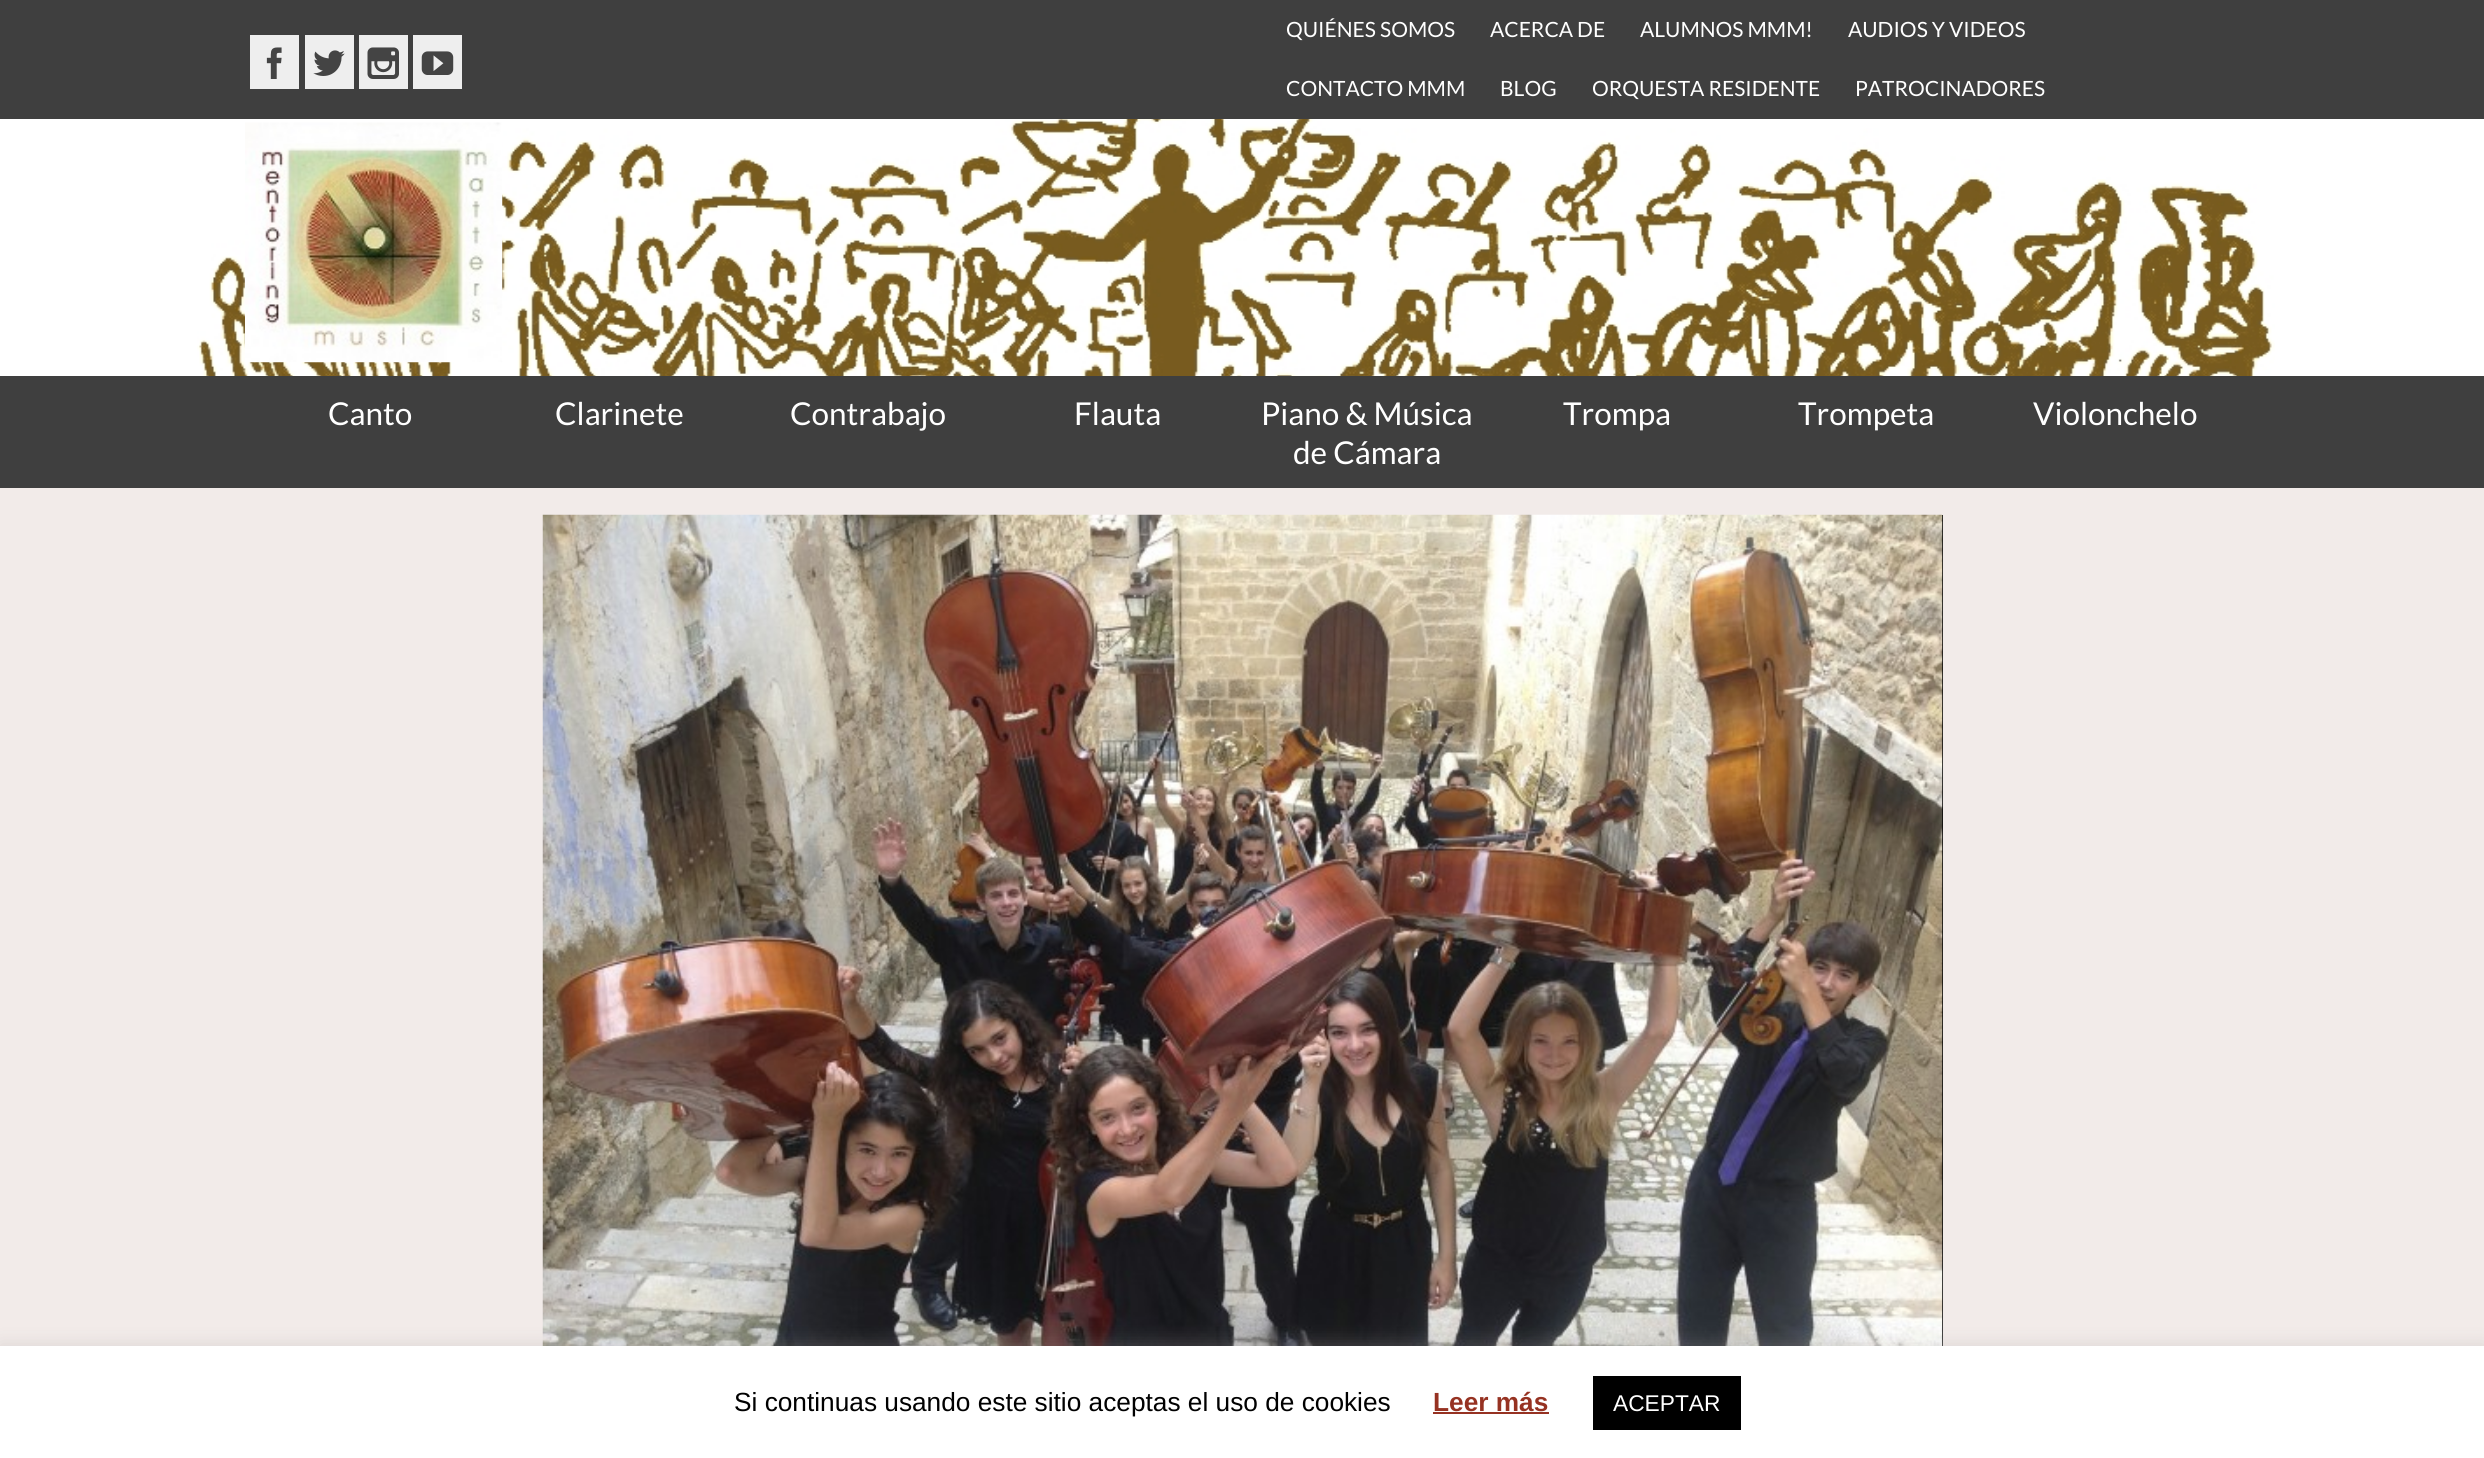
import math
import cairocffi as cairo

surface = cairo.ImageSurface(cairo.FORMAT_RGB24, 2484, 1458)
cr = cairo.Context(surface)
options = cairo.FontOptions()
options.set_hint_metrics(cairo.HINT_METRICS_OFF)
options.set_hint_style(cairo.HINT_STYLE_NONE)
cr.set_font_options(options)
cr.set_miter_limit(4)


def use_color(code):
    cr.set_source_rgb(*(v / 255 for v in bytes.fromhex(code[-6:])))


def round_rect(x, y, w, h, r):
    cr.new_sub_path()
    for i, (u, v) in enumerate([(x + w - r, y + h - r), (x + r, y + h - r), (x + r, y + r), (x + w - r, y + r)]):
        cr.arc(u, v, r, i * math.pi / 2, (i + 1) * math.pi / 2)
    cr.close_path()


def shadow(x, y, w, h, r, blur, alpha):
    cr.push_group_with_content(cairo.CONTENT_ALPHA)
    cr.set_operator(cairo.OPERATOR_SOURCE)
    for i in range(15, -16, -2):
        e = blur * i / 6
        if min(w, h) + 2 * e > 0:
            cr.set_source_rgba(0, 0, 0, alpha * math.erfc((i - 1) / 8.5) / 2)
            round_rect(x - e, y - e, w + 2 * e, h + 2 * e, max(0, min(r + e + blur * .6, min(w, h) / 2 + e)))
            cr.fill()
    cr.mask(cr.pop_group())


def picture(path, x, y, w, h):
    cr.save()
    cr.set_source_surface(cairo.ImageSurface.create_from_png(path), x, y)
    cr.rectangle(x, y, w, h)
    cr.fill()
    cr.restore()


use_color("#ffffff")
cr.paint()
picture("img1.png", 197, 119, 2078, 257)
use_color("#3f3f3f")
cr.rectangle(0, 0, 2484, 119)
cr.fill()
use_color("#eeeeee")
cr.rectangle(250, 35, 49, 54)
cr.fill()
picture("img2.png", 266, 47, 16, 32)
cr.rectangle(305, 35, 49, 54)
cr.fill()
picture("img3.png", 313, 50, 32, 26)
cr.rectangle(359, 35, 49, 54)
cr.fill()
picture("img4.png", 367, 47, 32, 32)
cr.rectangle(413, 35, 49, 54)
cr.fill()
picture("img5.png", 421, 51, 33, 24)
cr.select_font_face("Lato")
cr.set_font_size(21)
use_color("#ffffff")
cr.move_to(1286, 37)
cr.show_text("QUIÉNES SOMOS")
cr.move_to(1490, 37)
cr.show_text("ACERCA DE")
cr.move_to(1640, 37)
cr.show_text("ALUMNOS MMM!")
cr.move_to(1848, 37)
cr.show_text("AUDIOS Y VIDEOS")
cr.move_to(1286, 96)
cr.show_text("CONTACTO MMM")
cr.move_to(1500, 96)
cr.show_text("BLOG")
cr.move_to(1592, 96)
cr.show_text("ORQUESTA RESIDENTE")
cr.move_to(1855, 96)
cr.show_text("PATROCINADORES")
picture("img6.png", 245, 122, 258, 241)
use_color("#3f3f3f")
cr.rectangle(0, 376, 2484, 112)
cr.fill()
cr.set_font_size(31.5)
use_color("#ffffff")
cr.move_to(328, 425)
cr.show_text("Canto")
cr.move_to(555, 425)
cr.show_text("Clarinete")
cr.move_to(790, 425)
cr.show_text("Contrabajo")
cr.move_to(1074, 425)
cr.show_text("Flauta")
cr.move_to(1261, 425)
cr.show_text("Piano & Música")
cr.move_to(1293, 464)
cr.show_text("de Cámara")
cr.move_to(1563, 425)
cr.show_text("Trompa")
cr.move_to(1798, 425)
cr.show_text("Trompeta")
cr.move_to(2033, 425)
cr.show_text("Violonchelo")
use_color("#f2ebe9")
cr.rectangle(0, 488, 2484, 858)
cr.fill()
use_color("#000000")
cr.rectangle(1942, 515, 1, 831)
cr.fill()
picture("img7.png", 542, 514, 1401, 832)
use_color("#acabab")
shadow(0, 1344, 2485, 114, 0, 9, 0.3)
use_color("#ffffff")
cr.rectangle(0, 1346, 2484, 112)
cr.fill()
cr.select_font_face("Liberation Sans")
cr.set_font_size(26.25)
use_color("#000000")
cr.move_to(734, 1411)
cr.show_text("Si continuas usando este sitio aceptas el uso de cookies")
cr.select_font_face("Liberation Sans", cairo.FONT_SLANT_NORMAL, cairo.FONT_WEIGHT_BOLD)
use_color("#963222")
cr.move_to(1433, 1411)
cr.show_text("Leer más")
cr.rectangle(1433, 1412, 116, 2)
cr.fill()
use_color("#000000")
cr.rectangle(1593, 1376, 148, 54)
cr.fill()
cr.select_font_face("Liberation Sans")
cr.set_font_size(22.75)
use_color("#ffffff")
cr.move_to(1613, 1411)
cr.show_text("ACEPTAR")
surface.write_to_png("result.png")
